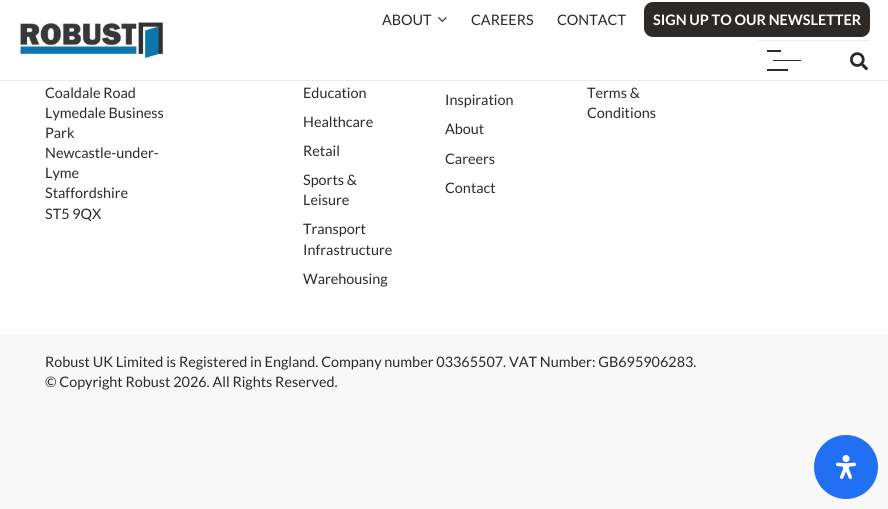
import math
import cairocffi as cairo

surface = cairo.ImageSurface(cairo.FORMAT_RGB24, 888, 509)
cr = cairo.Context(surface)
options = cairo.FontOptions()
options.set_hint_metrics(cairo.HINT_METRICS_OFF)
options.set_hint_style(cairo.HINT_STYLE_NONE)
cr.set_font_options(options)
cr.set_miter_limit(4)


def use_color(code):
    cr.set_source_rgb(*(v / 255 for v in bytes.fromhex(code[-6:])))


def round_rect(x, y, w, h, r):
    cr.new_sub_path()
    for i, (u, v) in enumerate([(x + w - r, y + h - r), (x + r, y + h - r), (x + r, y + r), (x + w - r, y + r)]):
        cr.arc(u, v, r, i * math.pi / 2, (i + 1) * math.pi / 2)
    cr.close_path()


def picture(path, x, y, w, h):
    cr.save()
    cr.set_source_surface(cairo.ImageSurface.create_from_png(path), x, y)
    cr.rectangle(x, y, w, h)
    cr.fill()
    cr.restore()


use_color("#ffffff")
cr.paint()
use_color("#ebebeb")
cr.rectangle(0, 80, 888, 1)
cr.fill()
picture("img1.png", 19, 21, 145, 38)
cr.select_font_face("Lato")
cr.set_font_size(14.4)
use_color("#2d2926")
cr.move_to(382, 25)
cr.show_text("ABOUT")
picture("img2.png", 438, 17, 9, 5)
cr.move_to(471, 25)
cr.show_text("CAREERS")
cr.move_to(557, 25)
cr.show_text("CONTACT")
round_rect(644, 2, 226, 35, 9)
cr.fill()
cr.select_font_face("Lato", cairo.FONT_SLANT_NORMAL, cairo.FONT_WEIGHT_BOLD)
use_color("#ffffff")
cr.move_to(653, 25)
cr.show_text("SIGN UP TO OUR NEWSLETTER")
use_color("#eeeeee")
cr.rectangle(756, 40, 114, 1)
cr.fill()
use_color("#2d2926")
cr.rectangle(773, 60, 28, 1)
cr.fill()
cr.rectangle(767, 50, 14, 2)
cr.fill()
cr.rectangle(767, 69, 21, 2)
cr.fill()
picture("img3.png", 850, 52, 18, 19)
cr.select_font_face("Lato")
cr.move_to(45, 98)
cr.show_text("Coaldale Road")
cr.move_to(45, 118)
cr.show_text("Lymedale Business")
cr.move_to(45, 138)
cr.show_text("Park")
cr.move_to(45, 158)
cr.show_text("Newcastle-under-")
cr.move_to(45, 178)
cr.show_text("Lyme")
cr.move_to(45, 198)
cr.show_text("Staffordshire")
cr.move_to(45, 219)
cr.show_text("ST5 9QX")
cr.move_to(303, 98)
cr.show_text("Education")
cr.move_to(303, 127)
cr.show_text("Healthcare")
cr.move_to(303, 156)
cr.show_text("Retail")
cr.move_to(303, 185)
cr.show_text("Sports &")
cr.move_to(303, 205)
cr.show_text("Leisure")
cr.move_to(303, 234)
cr.show_text("Transport")
cr.move_to(303, 255)
cr.show_text("Infrastructure")
cr.move_to(303, 284)
cr.show_text("Warehousing")
cr.move_to(445, 105)
cr.show_text("Inspiration")
cr.move_to(445, 134)
cr.show_text("About")
cr.move_to(445, 164)
cr.show_text("Careers")
cr.move_to(445, 193)
cr.show_text("Contact")
cr.move_to(587, 98)
cr.show_text("Terms &")
cr.move_to(587, 118)
cr.show_text("Conditions")
use_color("#f8f8f8")
cr.rectangle(0, 334, 888, 175)
cr.fill()
use_color("#2d2926")
cr.move_to(45, 367)
cr.show_text("Robust UK Limited is Registered in England. Company number 03365507. VAT Number: GB695906283.")
cr.move_to(45, 387)
cr.show_text("© Copyright Robust 2026. All Rights Reserved.")
use_color("#216ff3")
cr.new_path()
cr.arc(846, 467, 32, 0, 2 * math.pi)
cr.fill()
picture("img4.png", 836, 455, 20, 24)
surface.write_to_png("result.png")
